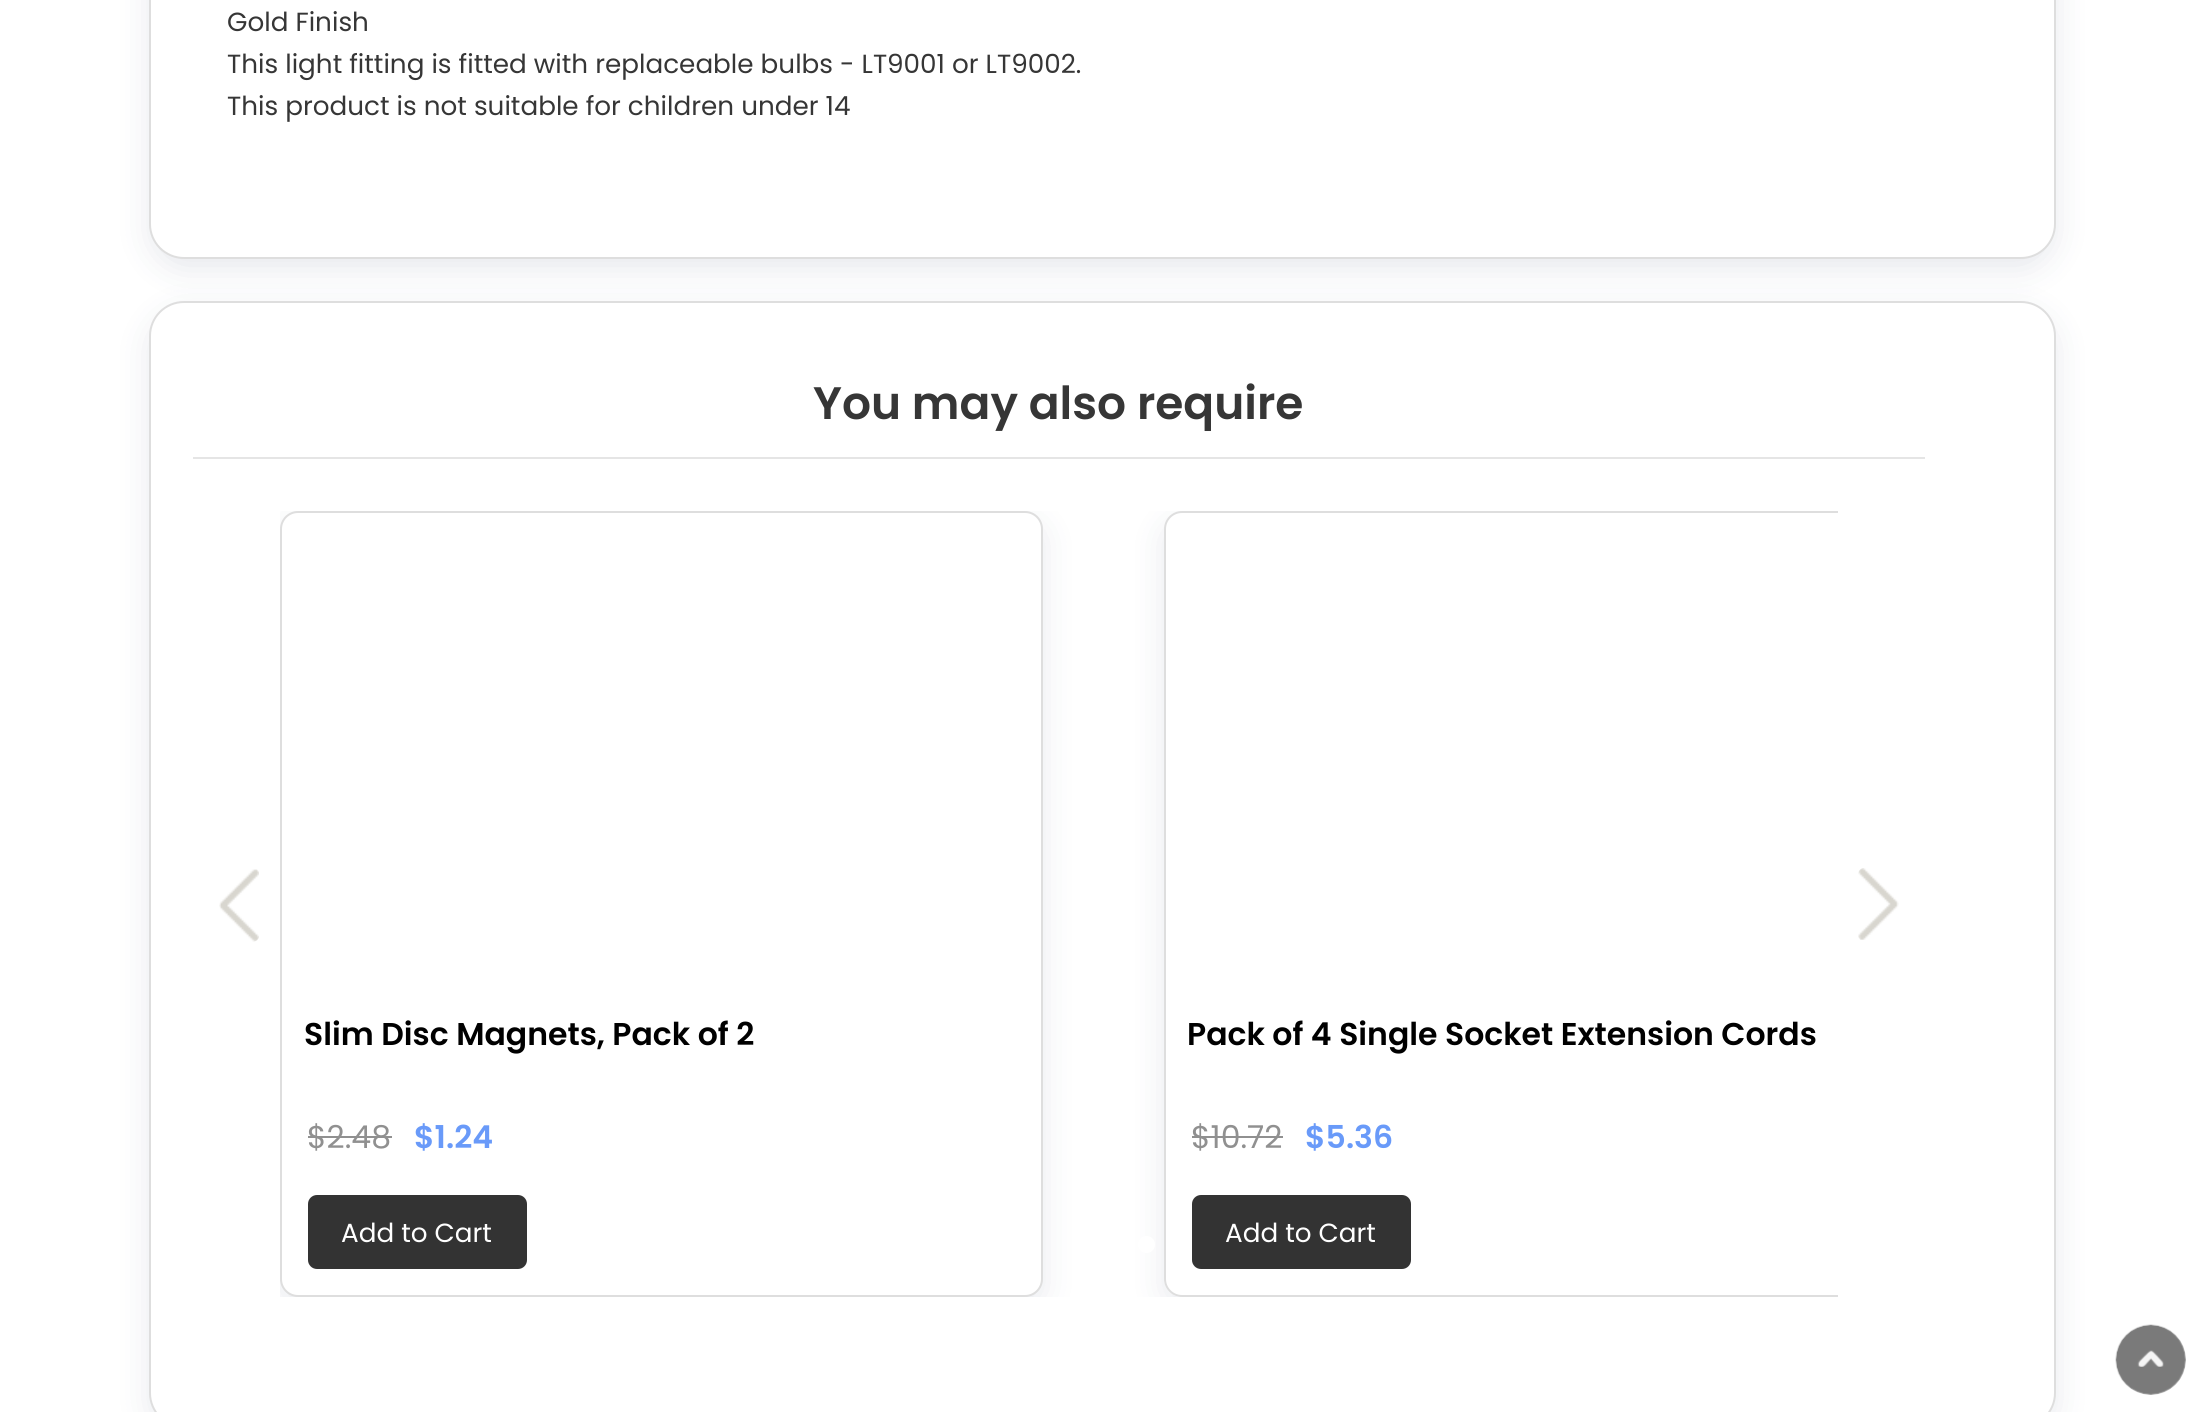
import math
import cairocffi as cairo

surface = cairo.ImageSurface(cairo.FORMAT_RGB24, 2203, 1412)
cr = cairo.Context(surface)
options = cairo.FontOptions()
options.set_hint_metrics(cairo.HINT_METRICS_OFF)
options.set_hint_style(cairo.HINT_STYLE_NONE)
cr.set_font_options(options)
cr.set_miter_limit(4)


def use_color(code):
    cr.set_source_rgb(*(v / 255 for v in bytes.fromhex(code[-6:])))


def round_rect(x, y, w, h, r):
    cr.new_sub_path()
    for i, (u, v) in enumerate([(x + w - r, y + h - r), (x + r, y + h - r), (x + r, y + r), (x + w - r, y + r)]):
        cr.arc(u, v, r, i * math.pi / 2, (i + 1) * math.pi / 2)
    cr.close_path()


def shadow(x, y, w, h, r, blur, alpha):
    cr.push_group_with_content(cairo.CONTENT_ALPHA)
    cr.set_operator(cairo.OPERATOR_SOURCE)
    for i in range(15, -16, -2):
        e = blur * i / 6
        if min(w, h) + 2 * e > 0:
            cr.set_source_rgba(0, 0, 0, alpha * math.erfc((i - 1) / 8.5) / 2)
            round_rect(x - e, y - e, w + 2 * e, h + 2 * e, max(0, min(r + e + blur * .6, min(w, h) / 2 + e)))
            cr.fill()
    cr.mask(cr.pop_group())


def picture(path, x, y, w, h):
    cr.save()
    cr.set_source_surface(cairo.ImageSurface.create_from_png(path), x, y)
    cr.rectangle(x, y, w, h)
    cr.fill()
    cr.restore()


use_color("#ffffff")
cr.paint()
use_color("#17234f")
shadow(149, -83, 1907, 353, 35, 16, 0.1)
use_color("#ffffff")
round_rect(150, -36, 1905, 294, 34)
cr.fill_preserve()
use_color("#dedede")
cr.stroke()
cr.select_font_face("Poppins")
cr.set_font_size(26.25)
use_color("#363636")
cr.move_to(227, 31)
cr.show_text("Gold Finish")
cr.move_to(227, 73)
cr.show_text("This light fitting is fitted with replaceable bulbs - LT9001 or LT9002.")
cr.move_to(227, 115)
cr.show_text("This product is not suitable for children under 14")
use_color("#17234f")
shadow(149, 312, 1907, 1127, 35, 16, 0.1)
use_color("#ffffff")
round_rect(150, 302, 1905, 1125, 34)
cr.fill_preserve()
use_color("#dedede")
cr.stroke()
use_color("#e5e5e5")
cr.rectangle(193, 457, 1732, 2)
cr.fill()
cr.select_font_face("Poppins SemiBold")
cr.set_font_size(45.5)
use_color("#363636")
cr.move_to(813, 419)
cr.show_text("You may also require")
cr.save()
cr.rectangle(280, 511, 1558, 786)
cr.clip()
use_color("#17234f")
shadow(280, 522, 763, 785, 18, 16, 0.1)
cr.restore()
picture("img1.png", 219, 869, 40, 73)
cr.save()
cr.rectangle(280, 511, 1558, 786)
cr.clip()
use_color("#17234f")
shadow(1164, 522, 763, 785, 18, 16, 0.1)
cr.restore()
use_color("#ffffff")
cr.new_path()
cr.move_to(1182, 511)
cr.line_to(1838, 511)
cr.line_to(1838, 1297)
cr.line_to(1182, 1297)
cr.curve_to(1172, 1297, 1164, 1289, 1164, 1279)
cr.line_to(1164, 529)
cr.curve_to(1164, 519, 1172, 511, 1182, 511)
cr.close_path()
cr.fill()
cr.save()
cr.rectangle(280, 511, 1558, 786)
cr.clip()
round_rect(1165, 512, 761, 784, 17)
use_color("#dedede")
cr.stroke()
cr.restore()
picture("img2.png", 1858, 868, 41, 72)
cr.arc(1146.5, 1244.5, 8.5, 0, 2 * math.pi)
cr.fill()
round_rect(281, 512, 761, 784, 17)
cr.fill_preserve()
use_color("#dedede")
cr.stroke()
cr.set_font_size(31.5)
use_color("#000000")
cr.move_to(304, 1045)
cr.show_text("Slim Disc Magnets, Pack of 2")
cr.select_font_face("Poppins")
use_color("#909090")
cr.move_to(307, 1148)
cr.show_text("$2.48")
cr.rectangle(308, 1136, 84, 2)
cr.fill()
cr.select_font_face("Poppins SemiBold")
use_color("#699af9")
cr.move_to(414, 1148)
cr.show_text("$1.24")
use_color("#333333")
round_rect(308, 1195, 219, 74, 9)
cr.fill()
cr.select_font_face("Poppins")
cr.set_font_size(26.25)
use_color("#ffffff")
cr.move_to(341, 1242)
cr.show_text("Add to Cart")
cr.select_font_face("Poppins SemiBold")
cr.set_font_size(31.5)
use_color("#000000")
cr.move_to(1187, 1045)
cr.show_text("Pack of 4 Single Socket Extension Cords")
cr.select_font_face("Poppins")
use_color("#909090")
cr.move_to(1191, 1148)
cr.show_text("$10.72")
cr.rectangle(1192, 1136, 91, 2)
cr.fill()
cr.select_font_face("Poppins SemiBold")
use_color("#699af9")
cr.move_to(1305, 1148)
cr.show_text("$5.36")
use_color("#333333")
round_rect(1192, 1195, 219, 74, 9)
cr.fill()
cr.select_font_face("Poppins")
cr.set_font_size(26.25)
use_color("#ffffff")
cr.move_to(1225, 1242)
cr.show_text("Add to Cart")
use_color("#f5f5f5")
cr.new_path()
cr.arc(2151, 1360, 35, 0, 2 * math.pi)
cr.fill()
picture("img3.png", 2115, 1324, 71, 71)
surface.write_to_png("result.png")
